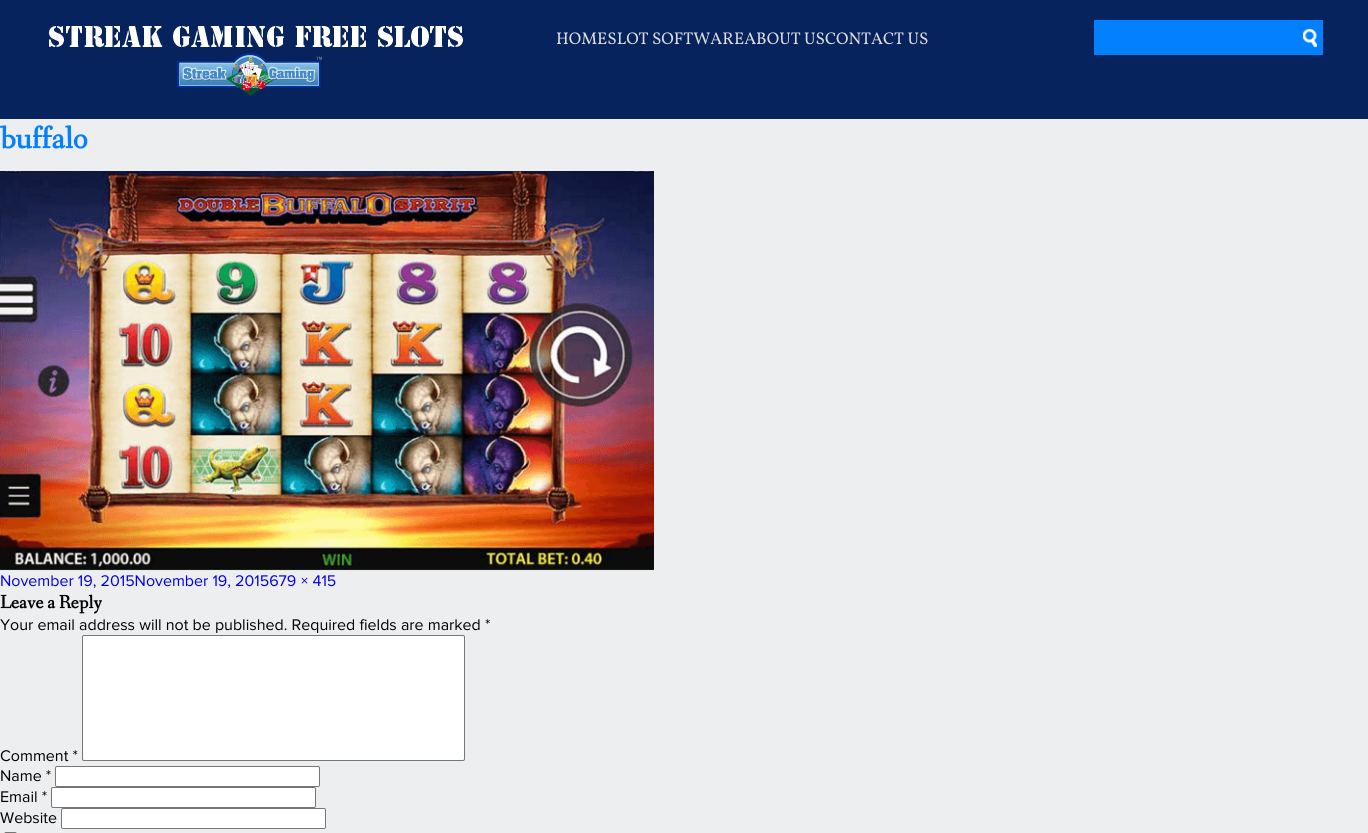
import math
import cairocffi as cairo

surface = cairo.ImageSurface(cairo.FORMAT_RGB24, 1368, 833)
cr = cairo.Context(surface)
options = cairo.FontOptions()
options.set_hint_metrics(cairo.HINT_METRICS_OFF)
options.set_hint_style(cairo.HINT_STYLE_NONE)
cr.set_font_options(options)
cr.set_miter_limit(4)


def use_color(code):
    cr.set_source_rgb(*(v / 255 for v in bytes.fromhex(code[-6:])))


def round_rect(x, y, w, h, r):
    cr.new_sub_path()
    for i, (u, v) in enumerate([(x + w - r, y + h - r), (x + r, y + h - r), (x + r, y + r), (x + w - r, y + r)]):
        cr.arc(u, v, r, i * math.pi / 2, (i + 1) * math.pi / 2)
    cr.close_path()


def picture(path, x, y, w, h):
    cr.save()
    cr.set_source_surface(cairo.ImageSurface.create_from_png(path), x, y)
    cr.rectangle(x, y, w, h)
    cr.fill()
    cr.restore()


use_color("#edeef0")
cr.paint()
use_color("#07235d")
cr.rectangle(0, 0, 1368, 119)
cr.fill()
picture("img1.png", 49, 26, 414, 70)
cr.select_font_face("Vollkorn")
cr.set_font_size(17)
use_color("#dddddd")
cr.move_to(556, 44)
cr.show_text("HOMESLOT SOFTWAREABOUT USCONTACT US")
use_color("#0380ff")
cr.rectangle(1094, 20, 229, 35)
cr.fill()
picture("img2.png", 1303, 29, 14, 18)
cr.select_font_face("Fanwood Text", cairo.FONT_SLANT_NORMAL, cairo.FONT_WEIGHT_BOLD)
cr.set_font_size(32)
cr.move_to(0, 148)
cr.show_text("buffalo")
picture("img3.png", 0, 171, 654, 400)
cr.select_font_face("Proxima Nova")
cr.set_font_size(16)
use_color("#0000ee")
cr.move_to(0, 586)
cr.show_text("November 19, 2015November 19, 2015679 × 415")
cr.select_font_face("Fanwood Text", cairo.FONT_SLANT_NORMAL, cairo.FONT_WEIGHT_BOLD)
cr.set_font_size(18.75)
use_color("#000000")
cr.move_to(0, 608)
cr.show_text("Leave a Reply")
cr.select_font_face("Proxima Nova")
cr.set_font_size(16)
cr.move_to(0, 630)
cr.show_text("Your email address will not be published. Required fields are marked *")
cr.move_to(0, 761)
cr.show_text("Comment *")
use_color("#ffffff")
round_rect(82.5, 635.5, 382, 125, 1.5)
cr.fill_preserve()
use_color("#767676")
cr.set_line_width(1)
cr.stroke()
use_color("#000000")
cr.move_to(0, 781)
cr.show_text("Name *")
use_color("#ffffff")
round_rect(55.5, 766.5, 264, 20, 1.5)
cr.fill_preserve()
use_color("#767676")
cr.stroke()
use_color("#000000")
cr.move_to(0, 802)
cr.show_text("Email *")
use_color("#ffffff")
round_rect(51.5, 787.5, 264, 20, 1.5)
cr.fill_preserve()
use_color("#767676")
cr.stroke()
use_color("#000000")
cr.move_to(0, 823)
cr.show_text("Website")
use_color("#ffffff")
round_rect(61.5, 808.5, 264, 20, 1.5)
cr.fill_preserve()
use_color("#767676")
cr.stroke()
round_rect(4.5, 832.5, 12, 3, 1.5)
cr.stroke()
surface.write_to_png("result.png")
